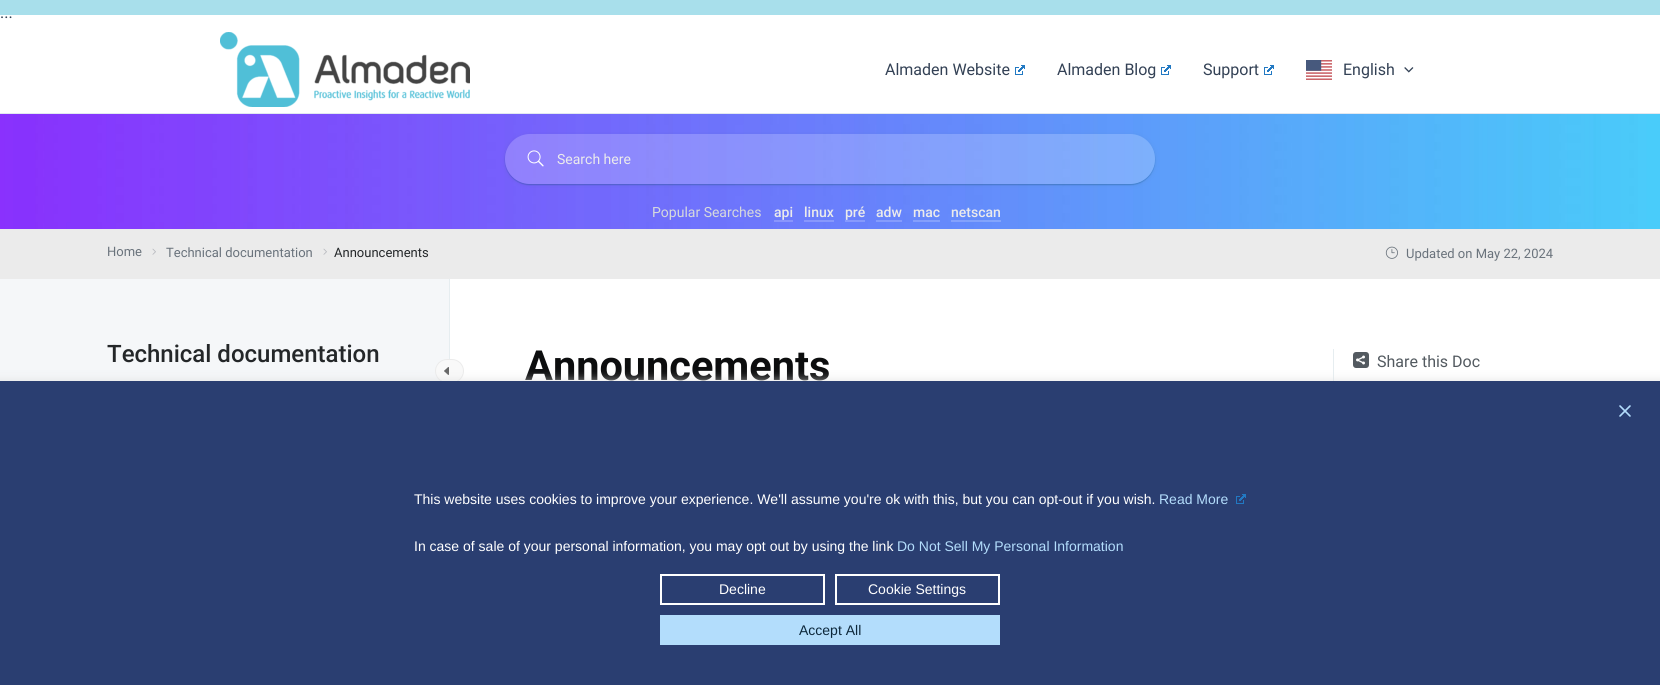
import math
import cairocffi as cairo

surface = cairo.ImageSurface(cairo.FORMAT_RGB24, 1660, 685)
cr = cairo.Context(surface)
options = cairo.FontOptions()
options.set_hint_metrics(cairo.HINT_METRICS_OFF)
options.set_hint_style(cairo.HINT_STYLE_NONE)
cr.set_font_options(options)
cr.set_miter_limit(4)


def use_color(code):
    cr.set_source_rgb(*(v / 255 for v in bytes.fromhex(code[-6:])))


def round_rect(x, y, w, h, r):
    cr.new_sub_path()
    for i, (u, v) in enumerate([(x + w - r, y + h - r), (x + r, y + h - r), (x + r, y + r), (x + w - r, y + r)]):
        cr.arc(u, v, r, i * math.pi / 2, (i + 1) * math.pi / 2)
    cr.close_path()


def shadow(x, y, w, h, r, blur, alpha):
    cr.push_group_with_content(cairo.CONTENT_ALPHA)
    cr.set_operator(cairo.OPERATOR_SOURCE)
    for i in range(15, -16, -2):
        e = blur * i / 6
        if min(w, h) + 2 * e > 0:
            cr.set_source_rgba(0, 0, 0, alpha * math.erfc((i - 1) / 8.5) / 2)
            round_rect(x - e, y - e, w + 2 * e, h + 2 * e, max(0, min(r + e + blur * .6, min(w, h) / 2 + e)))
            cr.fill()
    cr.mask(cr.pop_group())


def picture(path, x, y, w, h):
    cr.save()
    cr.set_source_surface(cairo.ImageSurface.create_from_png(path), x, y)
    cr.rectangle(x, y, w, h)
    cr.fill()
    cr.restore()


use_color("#ffffff")
cr.paint()
use_color("#a8dfeb")
cr.rectangle(0, 0, 1660, 15)
cr.fill()
cr.select_font_face("Roboto")
cr.set_font_size(16)
use_color("#334155")
cr.move_to(0, 18)
cr.show_text("...")
use_color("#e2e8f0")
cr.rectangle(0, 113, 1660, 1)
cr.fill()
picture("img1.png", 220, 32, 250, 75)
use_color("#334155")
cr.move_to(885, 75)
cr.show_text("Almaden Website")
picture("img2.png", 1015, 65, 10, 10)
cr.move_to(1057, 75)
cr.show_text("Almaden Blog")
picture("img2.png", 1161, 65, 10, 10)
cr.move_to(1203, 75)
cr.show_text("Support")
picture("img2.png", 1264, 65, 10, 10)
picture("img3.png", 1306, 60, 26, 20)
cr.move_to(1343, 75)
cr.show_text("English")
picture("img4.png", 1404, 67, 10, 6)
picture("img5.png", 0, 114, 1660, 115)
cr.save()
cr.set_fill_rule(cairo.FILL_RULE_EVEN_ODD)
cr.new_path()
cr.move_to(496, 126)
cr.line_to(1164, 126)
cr.line_to(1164, 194)
cr.line_to(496, 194)
cr.close_path()
cr.move_to(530, 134)
cr.line_to(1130, 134)
cr.curve_to(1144, 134, 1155, 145, 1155, 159)
cr.curve_to(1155, 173, 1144, 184, 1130, 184)
cr.line_to(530, 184)
cr.curve_to(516, 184, 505, 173, 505, 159)
cr.curve_to(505, 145, 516, 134, 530, 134)
cr.close_path()
cr.clip()
use_color("#3c4043")
shadow(505, 135, 650, 50, 25, 2.5, 0.1)
cr.restore()
cr.save()
cr.set_fill_rule(cairo.FILL_RULE_EVEN_ODD)
cr.new_path()
cr.move_to(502, 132)
cr.line_to(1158, 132)
cr.line_to(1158, 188)
cr.line_to(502, 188)
cr.close_path()
cr.move_to(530, 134)
cr.line_to(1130, 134)
cr.curve_to(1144, 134, 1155, 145, 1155, 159)
cr.curve_to(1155, 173, 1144, 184, 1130, 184)
cr.line_to(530, 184)
cr.curve_to(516, 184, 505, 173, 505, 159)
cr.curve_to(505, 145, 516, 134, 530, 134)
cr.close_path()
cr.clip()
use_color("#0b5073")
shadow(505, 135, 650, 50, 25, 0.5, 0.3)
cr.restore()
cr.set_source_rgba(1, 1, 1, 0.2)
round_rect(505, 134, 650, 50, 25)
cr.fill()
picture("img6.png", 527, 150, 17, 17)
cr.set_font_size(14)
use_color("#ebebeb")
cr.move_to(557, 164)
cr.show_text("Search here")
use_color("#d6d9dc")
cr.move_to(652, 217)
cr.show_text("Popular Searches")
cr.select_font_face("Roboto Medium")
use_color("#ebebeb")
cr.move_to(774, 217)
cr.show_text("api")
use_color("#8995fc")
cr.rectangle(774, 220, 19, 2)
cr.fill()
use_color("#ebebeb")
cr.move_to(804, 217)
cr.show_text("linux")
cr.set_source_rgba(1, 1, 1, 0.2)
cr.rectangle(804, 220, 30, 2)
cr.fill()
use_color("#ebebeb")
cr.move_to(845, 217)
cr.show_text("pré")
cr.set_source_rgba(1, 1, 1, 0.2)
cr.rectangle(845, 220, 20, 2)
cr.fill()
use_color("#ebebeb")
cr.move_to(876, 217)
cr.show_text("adw")
use_color("#859cfc")
cr.rectangle(876, 220, 26, 2)
cr.fill()
use_color("#ebebeb")
cr.move_to(913, 217)
cr.show_text("mac")
cr.set_source_rgba(1, 1, 1, 0.2)
cr.rectangle(913, 220, 27, 2)
cr.fill()
use_color("#ebebeb")
cr.move_to(951, 217)
cr.show_text("netscan")
cr.set_source_rgba(1, 1, 1, 0.2)
cr.rectangle(951, 220, 50, 2)
cr.fill()
use_color("#ebebeb")
cr.rectangle(0, 229, 1660, 50)
cr.fill()
cr.select_font_face("Roboto")
cr.set_font_size(13)
use_color("#6a737c")
cr.move_to(107, 256)
cr.show_text("Home")
picture("img7.png", 152, 248, 4, 7)
cr.move_to(166, 257)
cr.show_text("Technical documentation")
picture("img7.png", 323, 248, 4, 7)
use_color("#242729")
cr.move_to(334, 257)
cr.show_text("Announcements")
picture("img8.png", 1385, 246, 13, 13)
use_color("#6a737c")
cr.move_to(1406, 258)
cr.show_text("Updated on May 22, 2024")
use_color("#f5f7f9")
cr.rectangle(0, 279, 449, 102)
cr.fill()
use_color("#e6edf0")
cr.rectangle(449, 279, 1, 80)
cr.fill()
cr.select_font_face("Roboto Medium")
cr.set_font_size(24)
use_color("#242729")
cr.move_to(107, 362)
cr.show_text("Technical documentation")
use_color("#f9f9f9")
round_rect(435.5, 359.5, 28, 23, 11.5)
cr.fill_preserve()
use_color("#ebebeb")
cr.set_line_width(1)
cr.stroke()
picture("img9.png", 444, 367, 5, 8)
cr.select_font_face("Roboto", cairo.FONT_SLANT_NORMAL, cairo.FONT_WEIGHT_BOLD)
cr.set_font_size(41.5)
use_color("#0c0d0e")
cr.move_to(525, 380)
cr.show_text("Announcements")
use_color("#e6edf0")
cr.rectangle(1333, 349, 1, 32)
cr.fill()
picture("img10.png", 1353, 352, 16, 16)
cr.select_font_face("Roboto")
cr.set_font_size(16)
use_color("#535a60")
cr.move_to(1377, 367)
cr.show_text("Share this Doc")
use_color("#dddddd")
shadow(-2, 382, 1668, 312, 0, 5.5, 1)
use_color("#2a3e71")
cr.rectangle(0, 381, 1660, 304)
cr.fill()
picture("img11.png", 1619, 405, 12, 12)
cr.select_font_face("Liberation Sans")
cr.set_font_size(14)
use_color("#ffffff")
cr.move_to(414, 504)
cr.show_text("This website uses cookies to improve your experience. We'll assume you're ok with this, but you can opt-out if you wish.")
use_color("#b3ddfc")
cr.move_to(1159, 504)
cr.show_text("Read More")
picture("img12.png", 1236, 494, 10, 10)
use_color("#ffffff")
cr.move_to(414, 551)
cr.show_text("In case of sale of your personal information, you may opt out by using the link")
use_color("#b3ddfc")
cr.move_to(897, 551)
cr.show_text("Do Not Sell My Personal Information")
cr.rectangle(661, 575, 163, 29)
use_color("#ffffff")
cr.set_line_width(2)
cr.stroke()
cr.move_to(719, 594)
cr.show_text("Decline")
cr.rectangle(836, 575, 163, 29)
cr.stroke()
cr.move_to(868, 594)
cr.show_text("Cookie Settings")
use_color("#b3ddfc")
cr.rectangle(660, 615, 340, 30)
cr.fill()
use_color("#0d283b")
cr.move_to(799, 635)
cr.show_text("Accept All")
surface.write_to_png("result.png")
